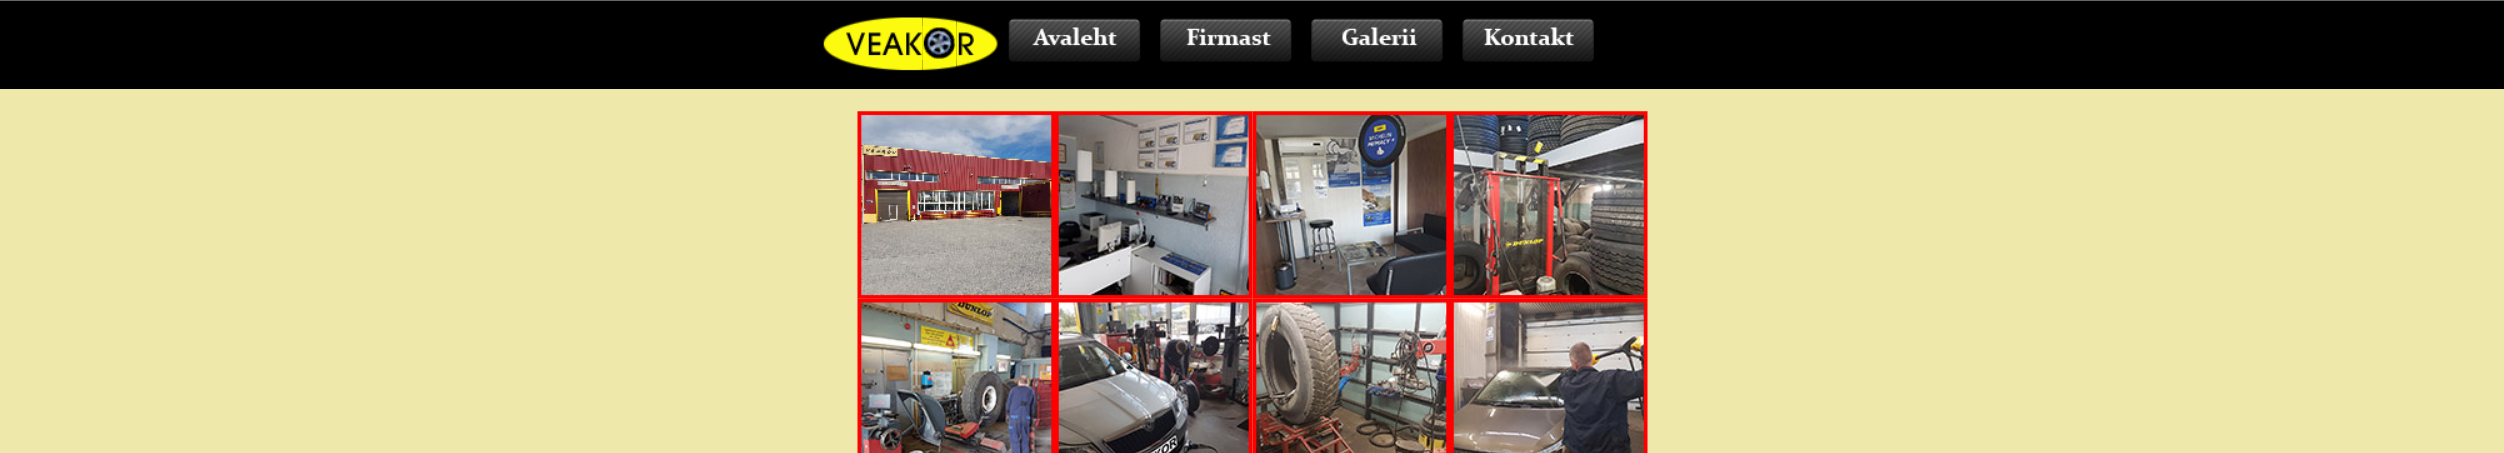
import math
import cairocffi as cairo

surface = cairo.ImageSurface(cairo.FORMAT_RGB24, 2504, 453)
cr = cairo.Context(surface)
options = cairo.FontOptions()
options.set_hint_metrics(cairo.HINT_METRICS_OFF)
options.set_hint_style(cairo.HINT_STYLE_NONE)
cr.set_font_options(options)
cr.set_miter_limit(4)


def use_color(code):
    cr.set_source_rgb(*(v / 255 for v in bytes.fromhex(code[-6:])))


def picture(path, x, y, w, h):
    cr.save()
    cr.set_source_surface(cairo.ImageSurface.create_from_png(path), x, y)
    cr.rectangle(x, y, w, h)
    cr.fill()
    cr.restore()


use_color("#666666")
cr.paint()
use_color("#000000")
cr.rectangle(0, 1, 2504, 88)
cr.fill()
picture("img2.png", 922, 17, 34, 54)
picture("img1.png", 823, 17, 100, 54)
picture("img3.png", 922, 26, 35, 34)
picture("img4.png", 956, 20, 42, 48)
picture("img5.png", 1008, 18, 133, 44)
picture("img6.png", 1160, 18, 132, 44)
picture("img7.png", 1311, 18, 132, 44)
picture("img8.png", 1462, 18, 132, 44)
use_color("#eee8aa")
cr.rectangle(0, 89, 2504, 364)
cr.fill()
picture("img9.png", 857, 111, 198, 188)
picture("img10.png", 1055, 111, 198, 188)
picture("img11.png", 1252, 111, 198, 188)
picture("img12.png", 1450, 111, 198, 188)
picture("img13.png", 857, 298, 198, 155)
picture("img14.png", 1055, 298, 198, 155)
picture("img15.png", 1252, 298, 198, 155)
picture("img16.png", 1450, 298, 198, 155)
surface.write_to_png("result.png")
